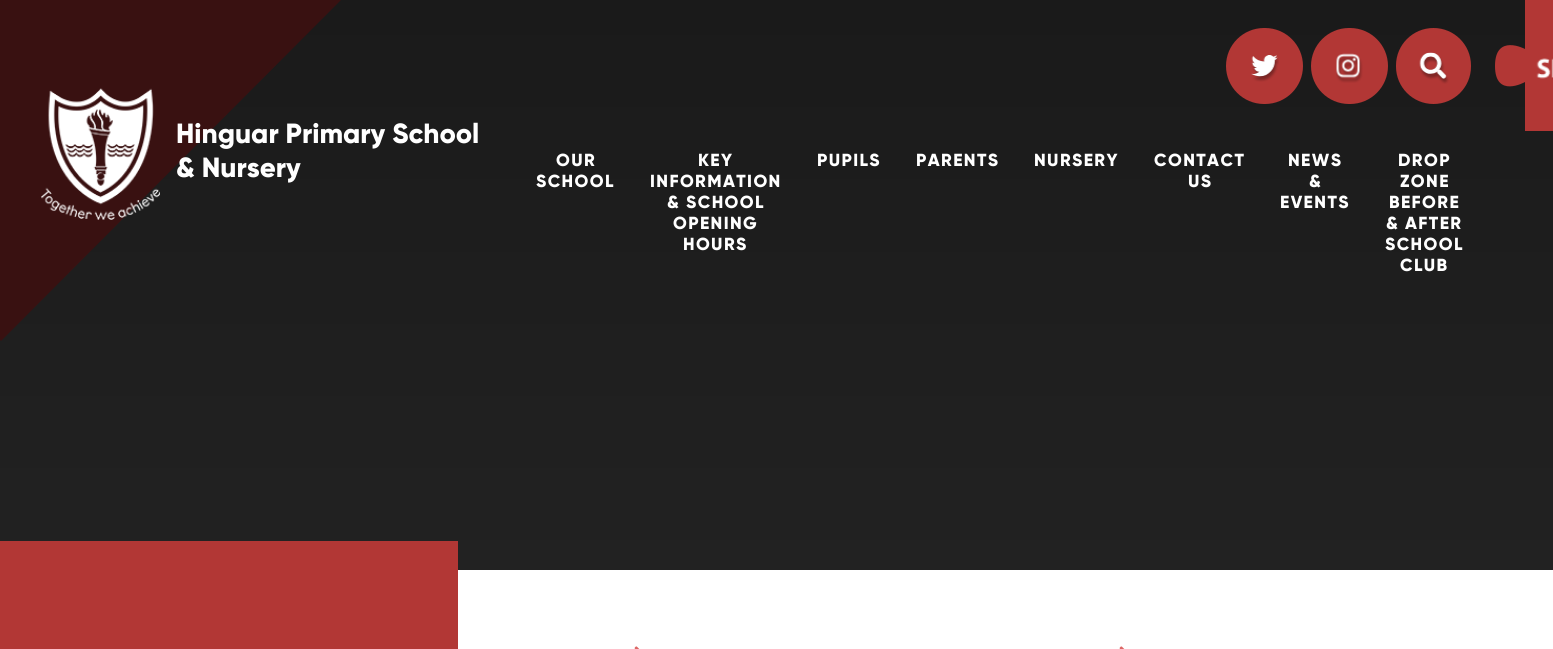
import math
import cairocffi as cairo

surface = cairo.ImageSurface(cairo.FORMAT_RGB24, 1553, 649)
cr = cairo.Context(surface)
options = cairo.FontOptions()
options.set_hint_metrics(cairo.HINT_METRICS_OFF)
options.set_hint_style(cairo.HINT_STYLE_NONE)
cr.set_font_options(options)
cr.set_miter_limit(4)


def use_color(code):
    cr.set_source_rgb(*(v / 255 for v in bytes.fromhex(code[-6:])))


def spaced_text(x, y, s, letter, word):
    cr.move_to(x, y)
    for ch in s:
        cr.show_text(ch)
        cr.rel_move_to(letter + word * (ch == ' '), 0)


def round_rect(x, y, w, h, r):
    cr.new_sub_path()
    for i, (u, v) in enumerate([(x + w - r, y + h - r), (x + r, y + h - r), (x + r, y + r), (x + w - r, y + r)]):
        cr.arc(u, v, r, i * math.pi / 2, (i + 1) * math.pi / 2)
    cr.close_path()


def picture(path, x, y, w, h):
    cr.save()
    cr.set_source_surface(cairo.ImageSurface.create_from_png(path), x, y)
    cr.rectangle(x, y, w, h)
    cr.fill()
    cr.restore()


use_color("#ffffff")
cr.paint()
gradient = cairo.LinearGradient(777, 0, 777, 570)
gradient.add_color_stop_rgba(0, 0.102, 0.102, 0.102, 1)
gradient.add_color_stop_rgba(1, 0.133, 0.133, 0.133, 1)
cr.set_source(gradient)
cr.rectangle(0, 0, 1553, 570)
cr.fill()
use_color("#391111")
cr.new_path()
cr.move_to(1, 341)
cr.line_to(0, 340)
cr.line_to(0, 0)
cr.line_to(341, 0)
cr.close_path()
cr.fill()
picture("img1.png", 41, 88, 119, 132)
cr.select_font_face("Gilroy ExtraBold")
cr.set_font_size(27.75)
use_color("#ffffff")
cr.move_to(176, 143)
cr.show_text("Hinguar Primary School")
cr.move_to(176, 177)
cr.show_text("& Nursery")
use_color("#b23735")
round_rect(1226, 28, 77, 76, 38)
cr.fill()
picture("img2.png", 1251, 55, 28, 27)
round_rect(1311, 28, 77, 76, 38)
cr.fill()
picture("img3.png", 1336, 53, 27, 30)
round_rect(1396, 28, 75, 76, 37.5)
cr.fill()
picture("img4.png", 1419, 52, 30, 32)
cr.new_path()
cr.move_to(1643, 131)
cr.line_to(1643, 0)
cr.line_to(1525, 0)
cr.line_to(1525, 49)
cr.curve_to(1525, 49, 1495, 33, 1495, 66)
cr.curve_to(1495, 99, 1525, 82, 1525, 82)
cr.line_to(1525, 131)
cr.line_to(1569, 131)
cr.curve_to(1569, 131, 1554, 164, 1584, 164)
cr.curve_to(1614, 164, 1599, 131, 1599, 131)
cr.close_path()
cr.fill()
picture("img5.png", 1536, 58, 17, 21)
cr.set_font_size(17.5)
use_color("#ffffff")
spaced_text(556, 166, "OUR", 1.4, 0)
spaced_text(536, 187, "SCHOOL", 1.4, 0)
spaced_text(698, 166, "KEY", 1.4, 0)
spaced_text(650, 187, "INFORMATION", 1.4, 0)
spaced_text(667, 208, "& SCHOOL", 1.4, 0)
spaced_text(673, 229, "OPENING", 1.4, 0)
spaced_text(683, 250, "HOURS", 1.4, 0)
spaced_text(817, 166, "PUPILS", 1.4, 0)
spaced_text(916, 166, "PARENTS", 1.4, 0)
spaced_text(1034, 166, "NURSERY", 1.4, 0)
spaced_text(1154, 166, "CONTACT", 1.4, 0)
spaced_text(1188, 187, "US", 1.4, 0)
spaced_text(1288, 166, "NEWS", 1.4, 0)
spaced_text(1309, 187, "&", 1.4, 0)
spaced_text(1280, 208, "EVENTS", 1.4, 0)
spaced_text(1398, 166, "DROP", 1.4, 0)
spaced_text(1400, 187, "ZONE", 1.4, 0)
spaced_text(1389, 208, "BEFORE", 1.4, 0)
spaced_text(1386, 229, "& AFTER", 1.4, 0)
spaced_text(1385, 250, "SCHOOL", 1.4, 0)
spaced_text(1400, 271, "CLUB", 1.4, 0)
use_color("#b23735")
cr.rectangle(0, 541, 458, 108)
cr.fill()
picture("img6.png", 634, 646, 6, 3)
picture("img6.png", 1119, 646, 6, 3)
surface.write_to_png("result.png")
